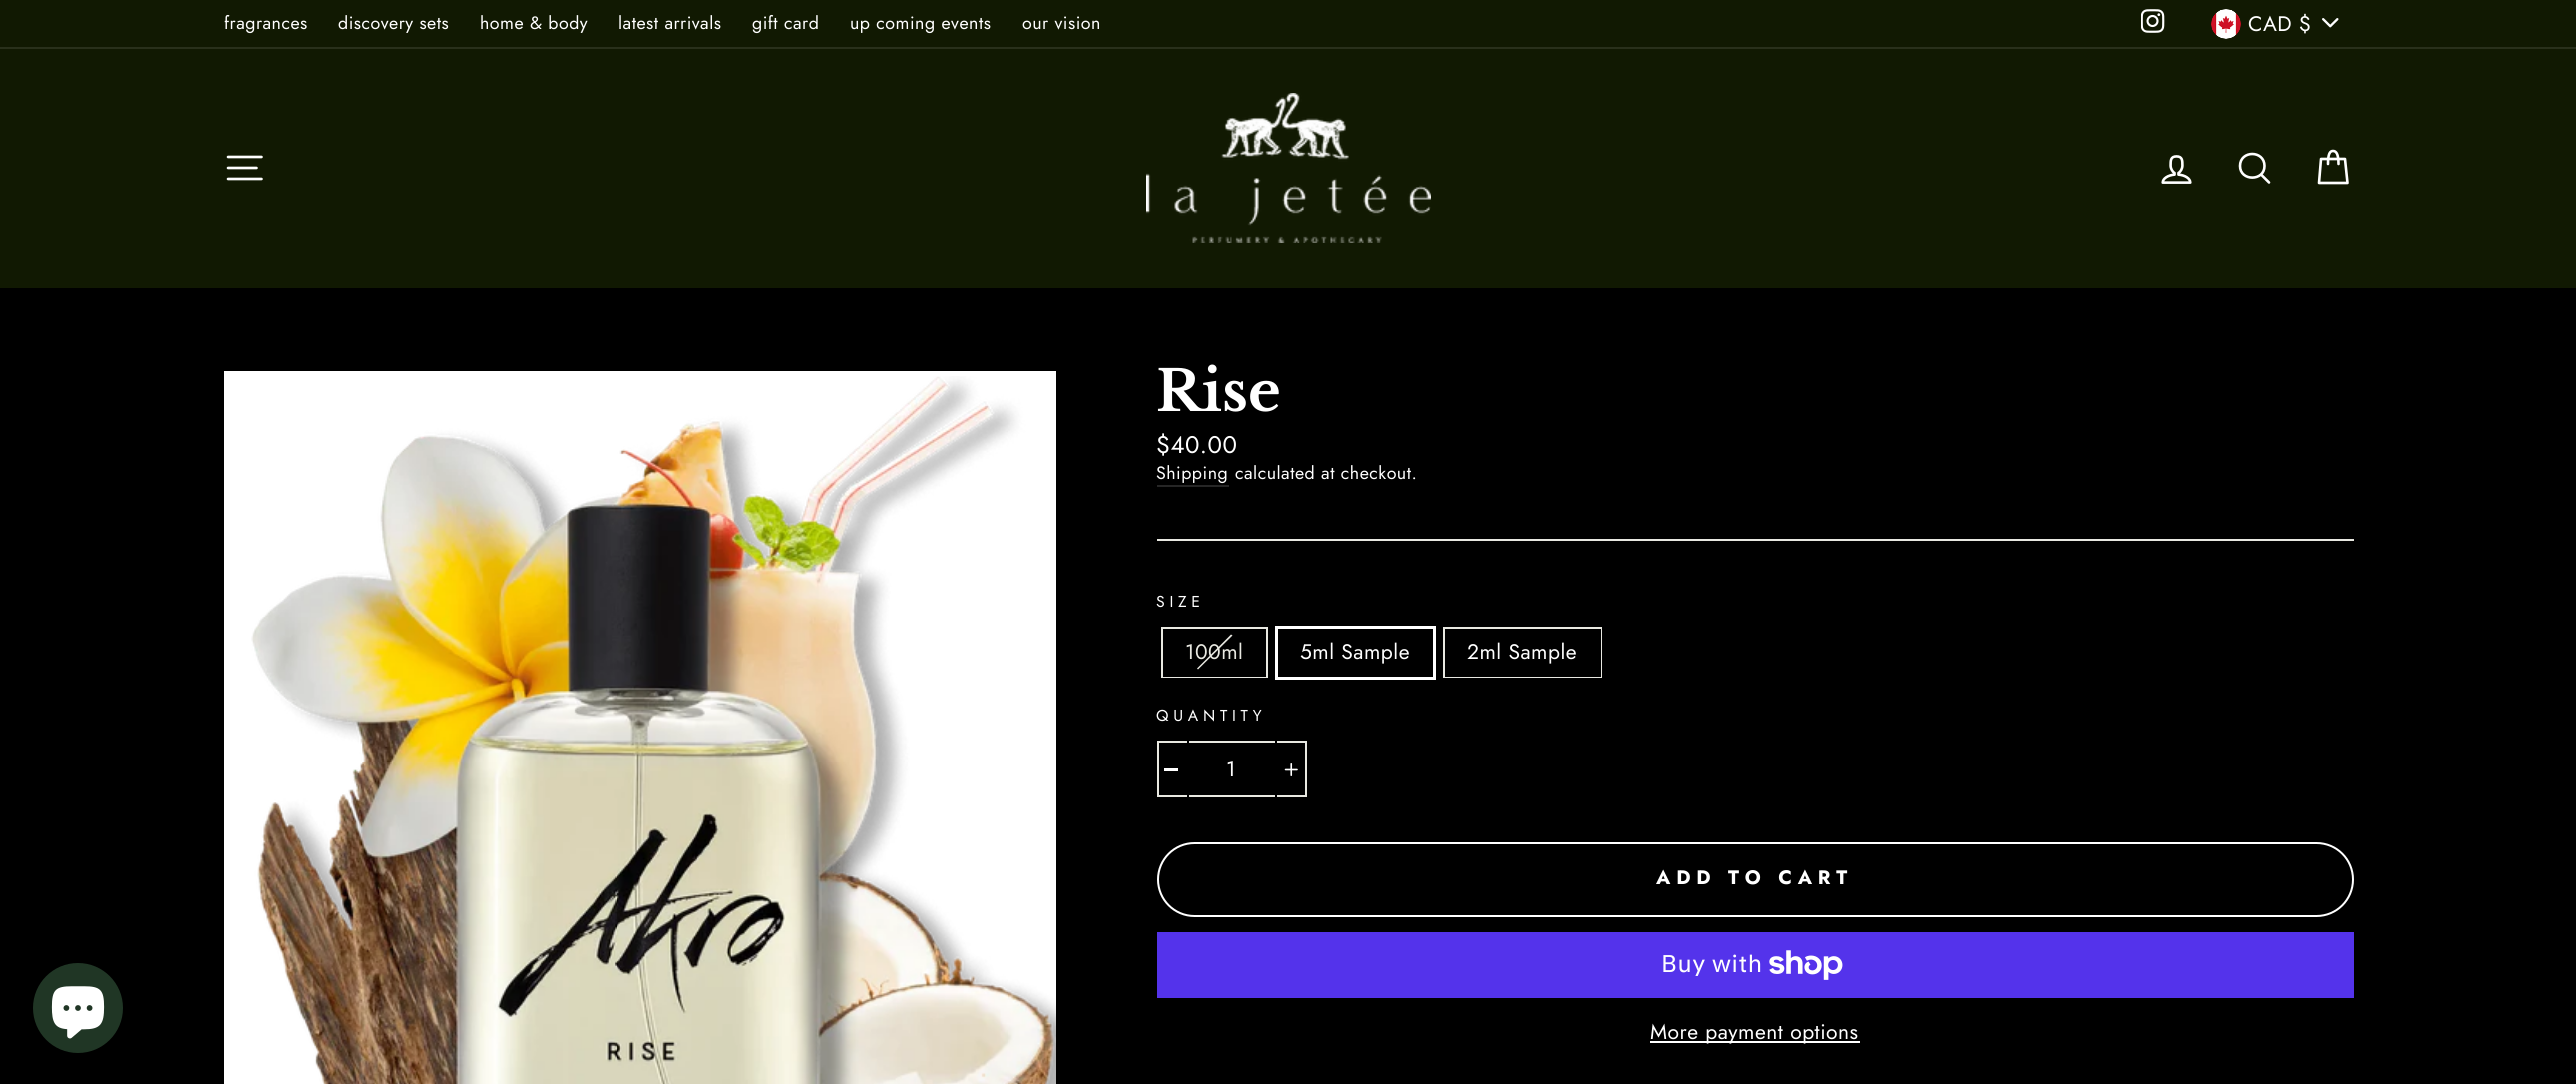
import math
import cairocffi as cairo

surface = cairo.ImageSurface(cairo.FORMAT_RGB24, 2576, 1084)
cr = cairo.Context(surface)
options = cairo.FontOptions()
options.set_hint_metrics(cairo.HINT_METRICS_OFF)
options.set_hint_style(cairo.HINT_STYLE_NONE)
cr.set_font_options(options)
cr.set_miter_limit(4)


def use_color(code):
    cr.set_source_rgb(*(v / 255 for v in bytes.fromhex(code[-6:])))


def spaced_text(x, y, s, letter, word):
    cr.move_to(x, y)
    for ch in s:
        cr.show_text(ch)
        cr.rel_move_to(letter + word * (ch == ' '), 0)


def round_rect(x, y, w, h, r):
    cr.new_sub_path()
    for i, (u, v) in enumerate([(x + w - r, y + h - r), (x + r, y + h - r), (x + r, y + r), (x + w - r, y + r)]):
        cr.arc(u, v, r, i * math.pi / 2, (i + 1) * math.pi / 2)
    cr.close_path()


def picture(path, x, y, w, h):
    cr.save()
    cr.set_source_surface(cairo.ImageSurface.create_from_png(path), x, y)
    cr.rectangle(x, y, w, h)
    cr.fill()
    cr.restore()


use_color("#000000")
cr.paint()
use_color("#203625")
cr.arc(78, 1008, 45, 0, 2 * math.pi)
cr.fill()
picture("img1.png", 51, 986, 54, 53)
use_color("#111902")
cr.rectangle(0, 0, 2576, 47)
cr.fill()
cr.select_font_face("Jost")
cr.set_font_size(17.8)
use_color("#ffffff")
spaced_text(224, 29, "fragrances", 0.5, 0)
spaced_text(338, 29, "discovery sets", 0.5, 0)
spaced_text(480, 29, "home & body", 0.5, 0)
spaced_text(618, 29, "latest arrivals", 0.5, 0)
spaced_text(752, 29, "gift card", 0.5, 0)
spaced_text(850, 29, "up coming events", 0.5, 0)
spaced_text(1022, 29, "our vision", 0.5, 0)
picture("img2.png", 2141, 9, 24, 24)
picture("img3.png", 2322, 18, 17, 10)
picture("img4.png", 2211, 9, 30, 30)
cr.set_font_size(21)
spaced_text(2248, 31, "CAD $", 0.5, 0)
use_color("#111902")
cr.rectangle(0, 49, 2576, 239)
cr.fill()
use_color("#29301b")
cr.rectangle(0, 47, 2576, 2)
cr.fill()
cr.new_path()
cr.move_to(228, 157)
cr.line_to(261.5, 157)
cr.move_to(228, 168)
cr.line_to(256.5, 168)
cr.move_to(228, 179)
cr.line_to(261.5, 179)
use_color("#ffffff")
cr.set_line_width(2.6)
cr.set_line_cap(cairo.LINE_CAP_ROUND)
cr.set_line_join(cairo.LINE_JOIN_ROUND)
cr.stroke()
picture("img5.png", 1146, 93, 285, 150)
picture("img6.png", 2161, 155, 31, 29)
cr.new_path()
cr.move_to(2264.5, 166)
cr.curve_to(2264.5, 181.5, 2240, 181.5, 2240, 166)
cr.curve_to(2240, 150, 2264.5, 150, 2264.5, 166)
cr.close_path()
cr.move_to(2269, 182.5)
cr.line_to(2261, 174.5)
cr.stroke()
cr.new_path()
cr.move_to(2328, 164)
cr.curve_to(2328, 153.5, 2330, 151, 2333, 151)
cr.curve_to(2336, 151, 2338.5, 153.5, 2338.5, 164)
cr.move_to(2321, 159)
cr.line_to(2345, 159)
cr.line_to(2347.5, 183)
cr.line_to(2319, 183)
cr.close_path()
cr.stroke()
cr.rectangle(224, 371, 832, 713)
cr.fill()
picture("img7.png", 251, 376, 805, 708)
cr.select_font_face("Libre Baskerville", cairo.FONT_SLANT_NORMAL, cairo.FONT_WEIGHT_BOLD)
cr.set_font_size(56)
cr.move_to(1156, 411)
cr.show_text("Rise")
cr.select_font_face("Jost")
cr.set_font_size(24)
spaced_text(1156, 453, "$40.00", 0.5, 0)
use_color("#262626")
cr.rectangle(1157, 485, 72, 2)
cr.fill()
cr.set_font_size(17.8)
use_color("#ffffff")
spaced_text(1156, 479, "Shipping", 0.5, 0)
spaced_text(1235, 479, "calculated at checkout.", 0.5, 0)
use_color("#e8e8e1")
cr.rectangle(1157, 539, 1197, 2)
cr.fill()
cr.set_font_size(15.75)
use_color("#ffffff")
spaced_text(1156, 607, "SIZE", 4.75, 0)
cr.rectangle(1162, 628, 105, 49)
use_color("#e8e8e1")
cr.set_line_width(2)
cr.set_line_cap(cairo.LINE_CAP_BUTT)
cr.set_line_join(cairo.LINE_JOIN_MITER)
cr.stroke()
use_color("#000000")
cr.rectangle(1163, 676, 103, 1)
cr.fill()
use_color("#e8e8e1")
cr.new_path()
cr.move_to(1231, 634.5)
cr.line_to(1232.5, 635.5)
cr.line_to(1198, 669.5)
cr.line_to(1197, 668.5)
cr.close_path()
cr.fill()
cr.set_font_size(21)
spaced_text(1185, 659, "100ml", 0.5, 0)
cr.rectangle(1276.5, 627.5, 158, 51)
use_color("#ffffff")
cr.set_line_width(3)
cr.stroke()
spaced_text(1300, 659, "5ml Sample", 0.5, 0)
cr.rectangle(1444, 628, 157, 49)
use_color("#e8e8e1")
cr.set_line_width(2)
cr.stroke()
use_color("#000000")
cr.rectangle(1445, 629, 156, 48)
cr.fill()
use_color("#ffffff")
spaced_text(1467, 659, "2ml Sample", 0.5, 0)
cr.set_font_size(15.75)
spaced_text(1156, 721, "QUANTITY", 4.75, 0)
cr.rectangle(1158, 742, 148, 54)
use_color("#e8e8e1")
cr.stroke()
use_color("#000000")
cr.rectangle(1187, 741, 2, 56)
cr.fill()
use_color("#ffffff")
cr.rectangle(1164, 768, 14, 3)
cr.fill()
cr.set_font_size(21)
spaced_text(1226, 776, "1", 0.5, 0)
use_color("#000000")
cr.rectangle(1275, 741, 2, 56)
cr.fill()
picture("img8.png", 1284, 763, 14, 13)
round_rect(1158, 843, 1195, 73, 36.5)
use_color("#ffffff")
cr.stroke()
cr.select_font_face("Jost", cairo.FONT_SLANT_NORMAL, cairo.FONT_WEIGHT_BOLD)
cr.set_font_size(19.5)
spaced_text(1656, 884, "ADD TO CART", 5.8, 0)
use_color("#5433eb")
cr.rectangle(1157, 932, 1197, 66)
cr.fill()
cr.select_font_face("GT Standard")
cr.set_font_size(24)
use_color("#ffffff")
spaced_text(1661, 972, "Buy with", 0.5, 0)
picture("img9.png", 1769, 950, 74, 30)
cr.rectangle(1650, 1041, 210, 2)
cr.fill()
cr.select_font_face("Jost")
cr.set_font_size(21)
spaced_text(1650, 1039, "More payment options", 0.5, 0)
surface.write_to_png("result.png")
